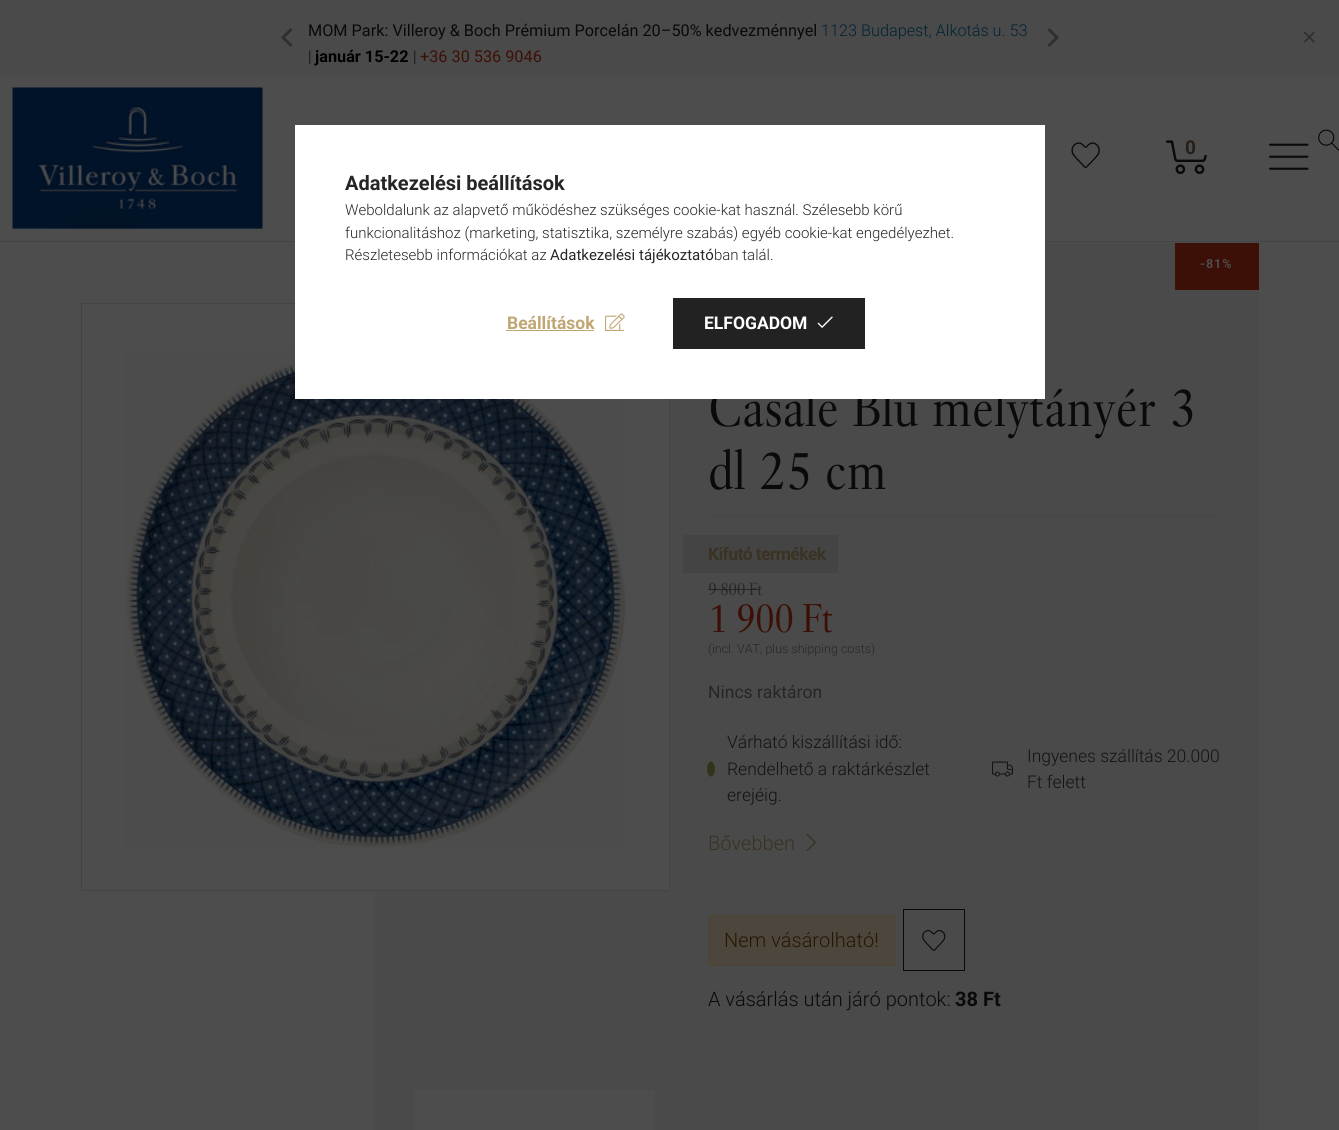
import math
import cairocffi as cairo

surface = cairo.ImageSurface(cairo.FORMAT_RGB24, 1339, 1130)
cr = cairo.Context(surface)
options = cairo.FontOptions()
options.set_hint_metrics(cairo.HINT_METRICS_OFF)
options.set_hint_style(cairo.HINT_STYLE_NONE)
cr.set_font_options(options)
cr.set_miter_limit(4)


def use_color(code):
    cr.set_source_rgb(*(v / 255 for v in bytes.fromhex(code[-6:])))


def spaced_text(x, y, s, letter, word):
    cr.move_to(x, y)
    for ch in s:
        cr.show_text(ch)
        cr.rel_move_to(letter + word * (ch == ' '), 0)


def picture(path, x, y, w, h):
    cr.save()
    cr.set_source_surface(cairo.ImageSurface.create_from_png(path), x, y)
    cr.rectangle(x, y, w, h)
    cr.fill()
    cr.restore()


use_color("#4d4d4d")
cr.paint()
use_color("#4a4a4a")
cr.rectangle(0, 0, 1339, 75)
cr.fill()
use_color("#2e2e2e")
cr.new_path()
cr.move_to(281, 37.5)
cr.line_to(290.5, 47)
cr.line_to(292.5, 45)
cr.line_to(285, 37.5)
cr.line_to(292.5, 30)
cr.line_to(290.5, 28)
cr.close_path()
cr.fill()
cr.select_font_face("Roboto")
cr.set_font_size(16.25)
use_color("#0a0a0a")
cr.move_to(308, 36)
cr.show_text("MOM Park: Villeroy & Boch Prémium Porcelán 20–50% kedvezménnyel")
cr.select_font_face("Roboto Light")
use_color("#002333")
cr.move_to(821, 36)
cr.show_text("1123 Budapest, Alkotás u. 53")
use_color("#0a0a0a")
cr.move_to(308, 62)
cr.show_text("|")
cr.select_font_face("Roboto", cairo.FONT_SLANT_NORMAL, cairo.FONT_WEIGHT_BOLD)
use_color("#000000")
cr.move_to(315, 62)
cr.show_text("január 15-22")
cr.select_font_face("Roboto Light")
use_color("#0a0a0a")
cr.move_to(413, 62)
cr.show_text("|")
cr.select_font_face("Roboto")
use_color("#3c1006")
cr.move_to(420, 62)
cr.show_text("+36 30 536 9046")
use_color("#2e2e2e")
cr.new_path()
cr.move_to(1059, 37.5)
cr.line_to(1049.5, 28)
cr.line_to(1047.5, 30)
cr.line_to(1055, 37.5)
cr.line_to(1047.5, 45)
cr.line_to(1049.5, 47)
cr.close_path()
cr.fill()
picture("img1.png", 1303, 31, 12, 12)
use_color("#444444")
cr.rectangle(0, 241, 1339, 1)
cr.fill()
picture("img2.png", 12, 87, 251, 142)
picture("img3.png", 1071, 142, 29, 26)
picture("img4.png", 1166, 140, 41, 34)
cr.select_font_face("Roboto", cairo.FONT_SLANT_NORMAL, cairo.FONT_WEIGHT_BOLD)
cr.set_font_size(19)
use_color("#261f17")
spaced_text(1185, 154, "0", -1.25, 0)
picture("img5.png", 1269, 143, 40, 27)
picture("img6.png", 1318, 129, 21, 22)
use_color("#4a4a4a")
cr.rectangle(375, 243, 884, 887)
cr.fill()
use_color("#4d4d4d")
cr.rectangle(375, 304, 294, 586)
cr.fill()
cr.rectangle(81.5, 303.5, 588, 587)
use_color("#444444")
cr.set_line_width(1)
cr.stroke()
picture("img7.png", 124, 346, 502, 503)
use_color("#3c1006")
cr.rectangle(1175, 243, 84, 47)
cr.fill()
cr.set_font_size(12.5)
use_color("#4d4d4d")
spaced_text(1200, 268, "-81%", 1, 0)
use_color("#464646")
cr.rectangle(708, 515, 513, 1)
cr.fill()
cr.select_font_face("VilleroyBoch")
cr.set_font_size(52.5)
use_color("#0a0a0a")
cr.move_to(708, 426)
cr.show_text("Casale Blu mélytányér 3")
cr.move_to(708, 489)
cr.show_text("dl 25 cm")
use_color("#444444")
cr.rectangle(683, 535, 155, 38)
cr.fill()
cr.select_font_face("Roboto", cairo.FONT_SLANT_NORMAL, cairo.FONT_WEIGHT_BOLD)
cr.set_font_size(17.5)
use_color("#3a3223")
spaced_text(708, 560, "Kifutó termékek", -0.6, 0)
cr.select_font_face("VilleroyBoch")
use_color("#262626")
spaced_text(708, 595, "9 800 Ft", -0.6, 0)
cr.rectangle(708, 589, 53, 1)
cr.fill()
cr.set_font_size(40)
use_color("#3c1006")
spaced_text(708, 632, "1 900 Ft", -1.25, 0)
cr.select_font_face("Roboto Light")
cr.set_font_size(12.5)
use_color("#262626")
cr.move_to(708, 653)
cr.show_text("(incl. VAT, plus shipping costs)")
cr.select_font_face("Roboto")
cr.set_font_size(17.5)
cr.move_to(708, 698)
cr.show_text("Nincs raktáron")
cr.select_font_face("Roboto Light")
use_color("#131312")
cr.move_to(727, 748)
cr.show_text("Várható kiszállítási idő:")
use_color("#32331a")
cr.new_path()
cr.move_to(711, 761.5)
cr.curve_to(713, 761.5, 715, 765, 715, 769)
cr.curve_to(715, 773, 713, 776.5, 711, 776.5)
cr.curve_to(709, 776.5, 707, 773, 707, 769)
cr.curve_to(707, 765, 709, 761.5, 711, 761.5)
cr.close_path()
cr.fill()
use_color("#131312")
cr.move_to(727, 775)
cr.show_text("Rendelhető a raktárkészlet")
cr.move_to(727, 801)
cr.show_text("erejéig.")
cr.move_to(1027, 762)
cr.show_text("Ingyenes szállítás 20.000")
picture("img8.png", 992, 761, 21, 16)
cr.move_to(1027, 788)
cr.show_text("Ft felett")
cr.set_font_size(20)
use_color("#3a3223")
cr.move_to(708, 850)
cr.show_text("Bővebben")
picture("img9.png", 806, 833, 10, 19)
use_color("#4c463d")
cr.rectangle(708.5, 915.5, 187, 50)
cr.fill_preserve()
use_color("#4b4437")
cr.stroke()
use_color("#261700")
cr.move_to(724, 947)
cr.show_text("Nem vásárolható!")
cr.rectangle(903.5, 909.5, 61, 61)
use_color("#0a0a0a")
cr.stroke()
picture("img10.png", 922, 930, 24, 21)
cr.move_to(708, 1006)
cr.show_text("A vásárlás után járó pontok:")
cr.select_font_face("Roboto", cairo.FONT_SLANT_NORMAL, cairo.FONT_WEIGHT_BOLD)
cr.move_to(955, 1006)
cr.show_text("38 Ft")
use_color("#4d4d4d")
cr.rectangle(414, 1090, 241, 40)
cr.fill()
use_color("#ffffff")
cr.rectangle(295, 125, 750, 274)
cr.fill()
use_color("#262626")
cr.move_to(345, 190)
cr.show_text("Adatkezelési beállítások")
cr.select_font_face("Roboto Light")
cr.set_font_size(15)
cr.move_to(345, 215)
cr.show_text("Weboldalunk az alapvető működéshez szükséges cookie-kat használ. Szélesebb körű")
cr.move_to(345, 238)
cr.show_text("funkcionalitáshoz (marketing, statisztika, személyre szabás) egyéb cookie-kat engedélyezhet.")
cr.move_to(345, 260)
cr.show_text("Részletesebb információkat az")
cr.select_font_face("Roboto")
cr.move_to(550, 260)
cr.show_text("Adatkezelési tájékoztató")
cr.select_font_face("Roboto Light")
cr.move_to(714, 260)
cr.show_text("ban talál.")
cr.select_font_face("Roboto", cairo.FONT_SLANT_NORMAL, cairo.FONT_WEIGHT_BOLD)
cr.set_font_size(17.5)
use_color("#c0a673")
cr.move_to(507, 329)
cr.show_text("Beállítások")
cr.rectangle(506, 330, 88, 1)
cr.fill()
picture("img11.png", 605, 313, 20, 17)
cr.rectangle(605, 330, 19, 1)
cr.fill()
gradient = cairo.LinearGradient(288, 323, 865, 323)
gradient.add_color_stop_rgba(0, 0.753, 0.651, 0.451, 1)
gradient.add_color_stop_rgba(0.33, 0.502, 0.404, 0.302, 1)
gradient.add_color_stop_rgba(0.67, 0.133, 0.133, 0.133, 1)
gradient.add_color_stop_rgba(1, 0.133, 0.133, 0.133, 1)
cr.set_source(gradient)
cr.rectangle(673, 298, 192, 51)
cr.fill()
use_color("#ffffff")
cr.move_to(704, 329)
cr.show_text("ELFOGADOM")
picture("img12.png", 817, 316, 16, 12)
surface.write_to_png("result.png")
